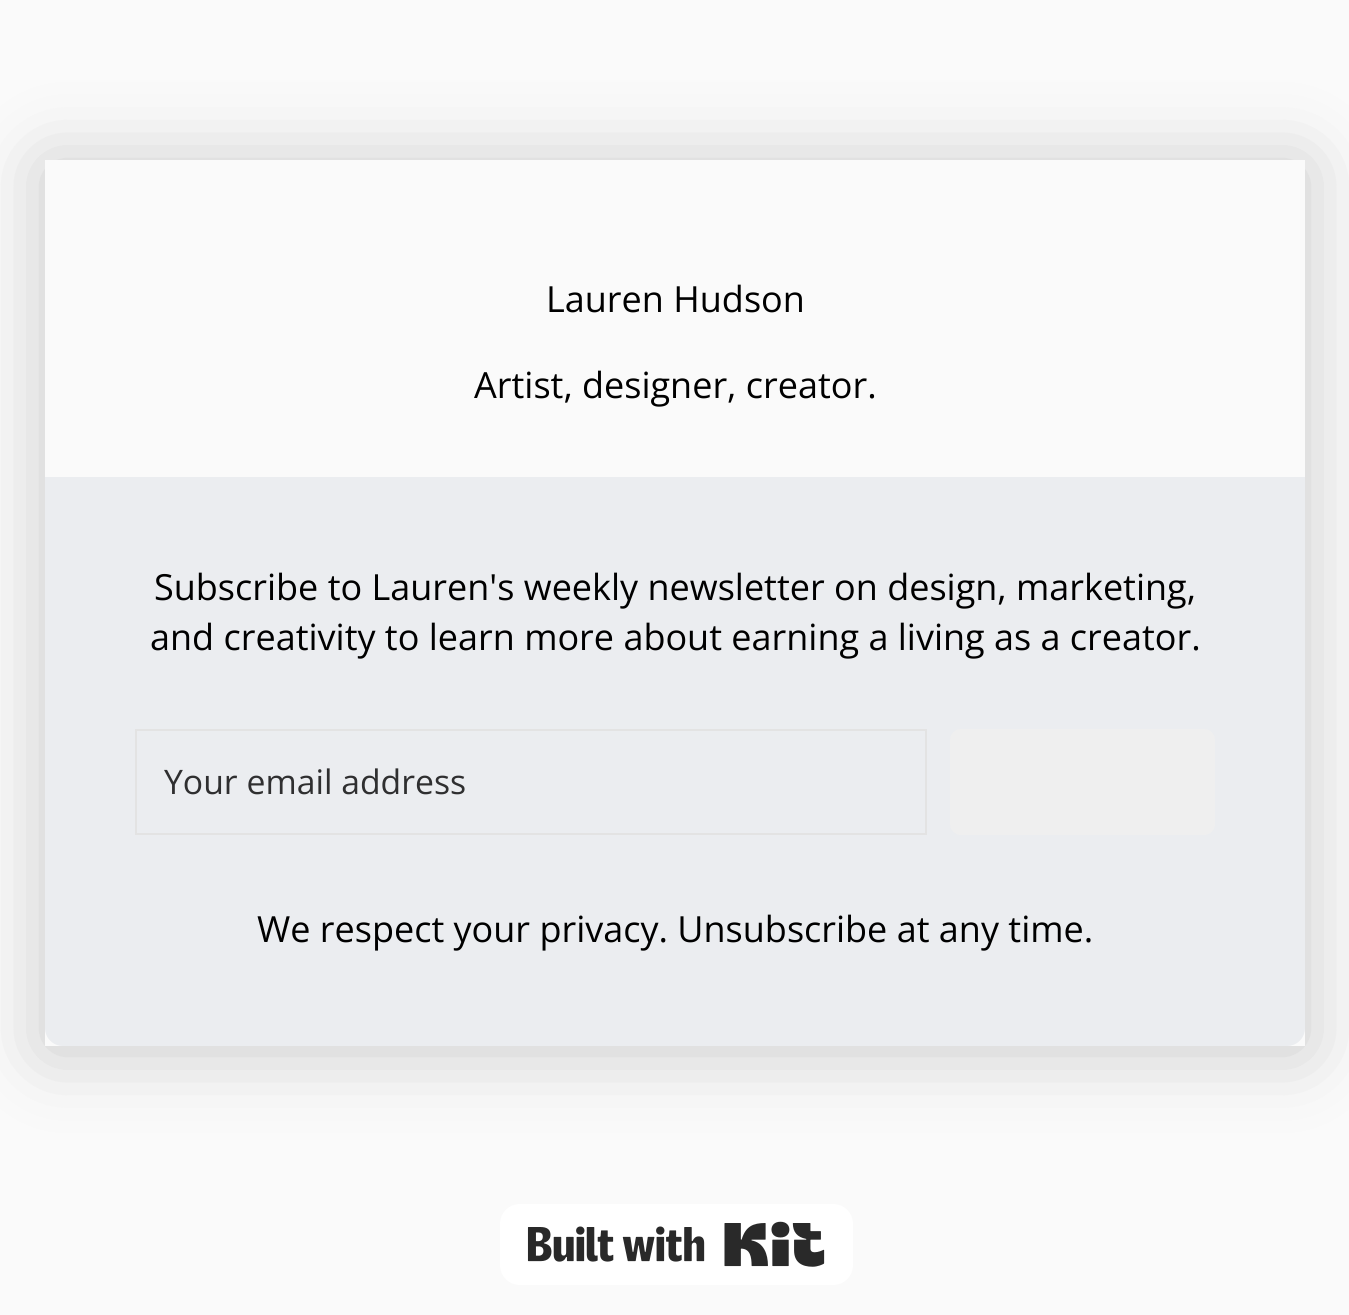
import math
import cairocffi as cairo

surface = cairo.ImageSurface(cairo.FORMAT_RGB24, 1349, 1315)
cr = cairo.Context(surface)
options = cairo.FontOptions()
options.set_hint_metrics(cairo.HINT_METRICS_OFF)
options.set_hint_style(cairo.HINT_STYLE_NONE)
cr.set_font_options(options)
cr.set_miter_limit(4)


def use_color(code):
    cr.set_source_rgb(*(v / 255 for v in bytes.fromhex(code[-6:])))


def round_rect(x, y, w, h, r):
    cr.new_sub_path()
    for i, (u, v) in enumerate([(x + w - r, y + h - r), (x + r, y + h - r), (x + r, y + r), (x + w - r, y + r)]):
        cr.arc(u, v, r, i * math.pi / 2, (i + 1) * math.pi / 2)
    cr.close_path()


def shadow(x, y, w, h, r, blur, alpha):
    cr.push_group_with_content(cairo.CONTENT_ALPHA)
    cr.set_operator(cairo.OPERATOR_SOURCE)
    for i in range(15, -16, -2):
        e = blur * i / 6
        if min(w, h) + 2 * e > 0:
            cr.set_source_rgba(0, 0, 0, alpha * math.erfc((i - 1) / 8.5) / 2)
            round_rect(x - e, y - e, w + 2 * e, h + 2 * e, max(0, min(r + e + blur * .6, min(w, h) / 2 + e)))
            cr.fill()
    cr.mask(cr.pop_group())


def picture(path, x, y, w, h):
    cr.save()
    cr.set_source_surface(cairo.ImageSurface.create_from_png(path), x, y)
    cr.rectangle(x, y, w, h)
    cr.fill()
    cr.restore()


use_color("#fafafa")
cr.paint()
cr.save()
cr.set_fill_rule(cairo.FILL_RULE_EVEN_ODD)
cr.new_path()
cr.move_to(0, 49)
cr.line_to(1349, 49)
cr.line_to(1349, 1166)
cr.line_to(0, 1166)
cr.close_path()
cr.move_to(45, 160)
cr.line_to(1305, 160)
cr.line_to(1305, 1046)
cr.line_to(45, 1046)
cr.close_path()
cr.clip()
use_color("#333333")
shadow(45, 164, 1260, 887, 0, 38, 0.25)
cr.restore()
cr.select_font_face("Open Sans")
cr.set_font_size(36)
use_color("#000000")
cr.move_to(546, 312)
cr.show_text("Lauren Hudson")
cr.move_to(474, 398)
cr.show_text("Artist, designer, creator.")
use_color("#ebedf0")
cr.new_path()
cr.move_to(45, 477)
cr.line_to(1305, 477)
cr.line_to(1305, 1028)
cr.curve_to(1305, 1038, 1297, 1046, 1287, 1046)
cr.line_to(63, 1046)
cr.curve_to(53, 1046, 45, 1038, 45, 1028)
cr.close_path()
cr.fill()
use_color("#000000")
cr.move_to(154, 600)
cr.show_text("Subscribe to Lauren's weekly newsletter on design, marketing,")
cr.move_to(150, 650)
cr.show_text("and creativity to learn more about earning a living as a creator.")
cr.rectangle(136, 730, 790, 104)
use_color("#e3e3e3")
cr.stroke()
cr.set_font_size(33.75)
use_color("#2f2f30")
cr.move_to(164, 794)
cr.show_text("Your email address")
use_color("#efefef")
round_rect(950, 729, 265, 106, 11)
cr.fill()
cr.set_font_size(36)
use_color("#000000")
cr.move_to(257, 942)
cr.show_text("We respect your privacy. Unsubscribe at any time.")
use_color("#ffffff")
round_rect(500, 1204, 353, 81, 20)
cr.fill()
picture("img1.png", 527, 1221, 298, 46)
surface.write_to_png("result.png")
